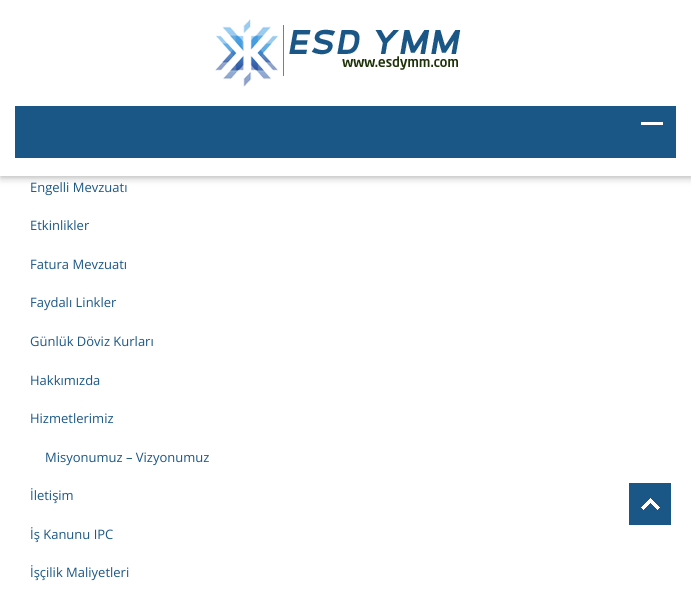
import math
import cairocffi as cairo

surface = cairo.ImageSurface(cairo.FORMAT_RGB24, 691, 605)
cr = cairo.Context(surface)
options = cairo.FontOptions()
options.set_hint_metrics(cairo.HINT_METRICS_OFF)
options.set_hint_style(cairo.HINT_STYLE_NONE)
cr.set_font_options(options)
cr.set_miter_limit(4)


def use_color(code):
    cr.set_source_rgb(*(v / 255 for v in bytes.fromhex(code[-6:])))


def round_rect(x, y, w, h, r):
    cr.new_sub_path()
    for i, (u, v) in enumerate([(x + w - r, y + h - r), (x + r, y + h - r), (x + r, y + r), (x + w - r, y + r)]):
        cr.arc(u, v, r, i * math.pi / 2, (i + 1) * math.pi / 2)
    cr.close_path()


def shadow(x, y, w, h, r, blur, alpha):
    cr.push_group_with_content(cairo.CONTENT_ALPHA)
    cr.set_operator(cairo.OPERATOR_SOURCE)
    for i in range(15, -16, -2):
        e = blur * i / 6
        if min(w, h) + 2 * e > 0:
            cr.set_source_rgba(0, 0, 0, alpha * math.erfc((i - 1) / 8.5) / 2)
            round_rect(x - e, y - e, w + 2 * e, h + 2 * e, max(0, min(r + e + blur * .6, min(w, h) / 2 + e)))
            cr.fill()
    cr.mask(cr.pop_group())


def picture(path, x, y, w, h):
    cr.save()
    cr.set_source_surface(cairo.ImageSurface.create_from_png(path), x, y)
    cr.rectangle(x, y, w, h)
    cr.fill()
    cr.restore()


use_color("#ffffff")
cr.paint()
use_color("#aaaaaa")
shadow(1, 1, 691, 176, 0, 4, 1)
use_color("#ffffff")
cr.rectangle(0, 0, 691, 176)
cr.fill()
picture("img1.png", 215, 19, 246, 68)
use_color("#1b5786")
cr.rectangle(15, 106, 661, 52)
cr.fill()
use_color("#ffffff")
cr.rectangle(641, 122, 22, 3)
cr.fill()
cr.select_font_face("Open Sans")
cr.set_font_size(13)
use_color("#1b5786")
cr.move_to(30, 192)
cr.show_text("Engelli Mevzuatı")
cr.move_to(30, 230)
cr.show_text("Etkinlikler")
cr.move_to(30, 269)
cr.show_text("Fatura Mevzuatı")
cr.move_to(30, 307)
cr.show_text("Faydalı Linkler")
cr.move_to(30, 346)
cr.show_text("Günlük Döviz Kurları")
cr.move_to(30, 385)
cr.show_text("Hakkımızda")
cr.move_to(30, 423)
cr.show_text("Hizmetlerimiz")
cr.move_to(45, 462)
cr.show_text("Misyonumuz – Vizyonumuz")
cr.move_to(30, 500)
cr.show_text("İletişim")
cr.move_to(30, 539)
cr.show_text("İş Kanunu IPC")
cr.move_to(30, 577)
cr.show_text("İşçilik Maliyetleri")
cr.rectangle(629, 483, 42, 42)
cr.fill()
picture("img2.png", 641, 498, 19, 12)
surface.write_to_png("result.png")
